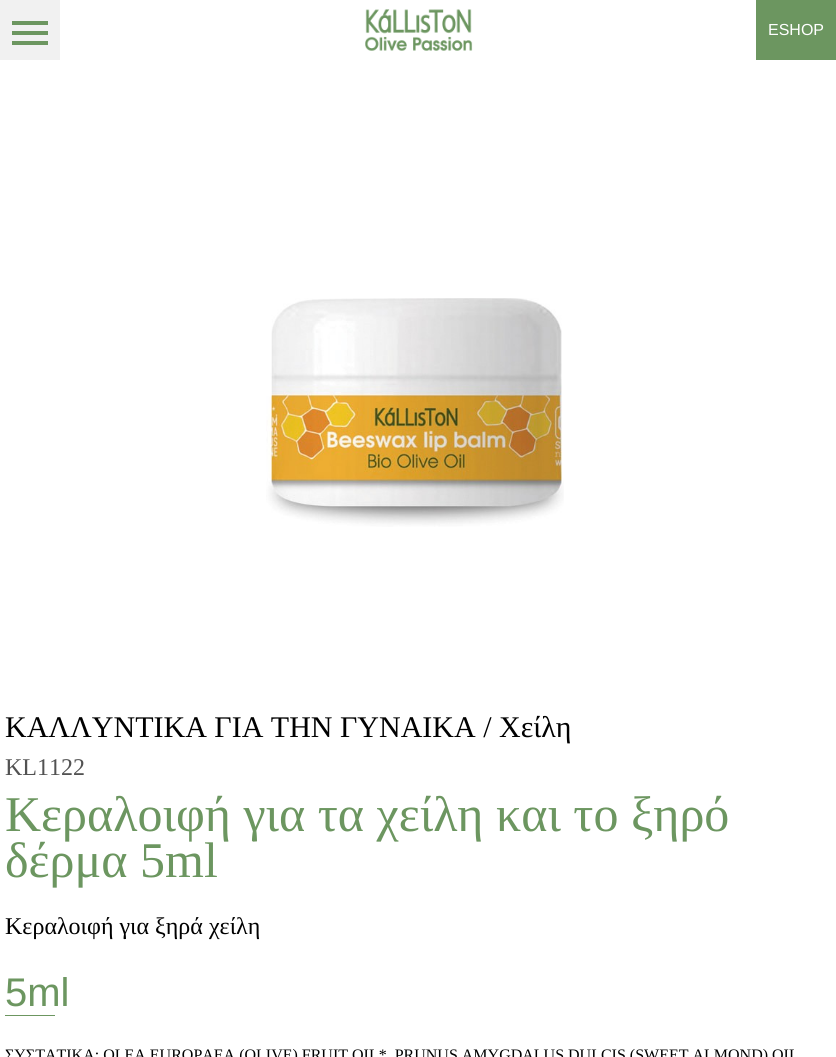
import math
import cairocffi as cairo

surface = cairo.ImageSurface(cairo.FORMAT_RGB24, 836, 1057)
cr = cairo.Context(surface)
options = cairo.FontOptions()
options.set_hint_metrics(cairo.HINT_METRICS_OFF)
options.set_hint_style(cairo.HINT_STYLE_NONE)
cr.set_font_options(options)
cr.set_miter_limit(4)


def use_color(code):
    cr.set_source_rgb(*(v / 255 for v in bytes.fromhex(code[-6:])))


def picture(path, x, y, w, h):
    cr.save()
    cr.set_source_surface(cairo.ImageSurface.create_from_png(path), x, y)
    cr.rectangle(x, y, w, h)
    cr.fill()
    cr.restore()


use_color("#ffffff")
cr.paint()
use_color("#f1f1f1")
cr.rectangle(0, 0, 60, 60)
cr.fill()
use_color("#6c9660")
cr.rectangle(12, 21, 36, 4)
cr.fill()
cr.rectangle(12, 31, 36, 4)
cr.fill()
cr.rectangle(12, 41, 36, 4)
cr.fill()
picture("img1.png", 365, 9, 108, 42)
cr.rectangle(756, 0, 80, 60)
cr.fill()
cr.select_font_face("Liberation Sans")
cr.set_font_size(16)
use_color("#ffffff")
cr.move_to(768, 35)
cr.show_text("ESHOP")
picture("img2.png", 266, 298, 298, 229)
cr.select_font_face("Liberation Serif")
cr.set_font_size(30)
use_color("#000000")
cr.move_to(5, 737)
cr.show_text("ΚΑΛΛΥΝΤΙΚΑ ΓΙΑ ΤΗΝ ΓΥΝΑΙΚΑ / Χείλη")
cr.set_font_size(24)
use_color("#525252")
cr.move_to(5, 775)
cr.show_text("KL1122")
cr.set_font_size(50)
use_color("#6c9660")
cr.move_to(5, 831)
cr.show_text("Κεραλοιφή για τα χείλη και το ξηρό")
cr.move_to(5, 877)
cr.show_text("δέρμα 5ml")
cr.set_font_size(24)
use_color("#000000")
cr.move_to(5, 934)
cr.show_text("Κεραλοιφή για ξηρά χείλη")
cr.select_font_face("Liberation Sans")
cr.set_font_size(40)
use_color("#6c9660")
cr.move_to(5, 1006)
cr.show_text("5ml")
cr.rectangle(5, 1015, 50, 1)
cr.fill()
cr.select_font_face("Liberation Serif")
cr.set_font_size(16)
use_color("#000000")
cr.move_to(5, 1060)
cr.show_text("ΣΥΣΤΑΤΙΚΑ: OLEA EUROPAEA (OLIVE) FRUIT OIL*, PRUNUS AMYGDALUS DULCIS (SWEET ALMOND) OIL")
surface.write_to_png("result.png")
